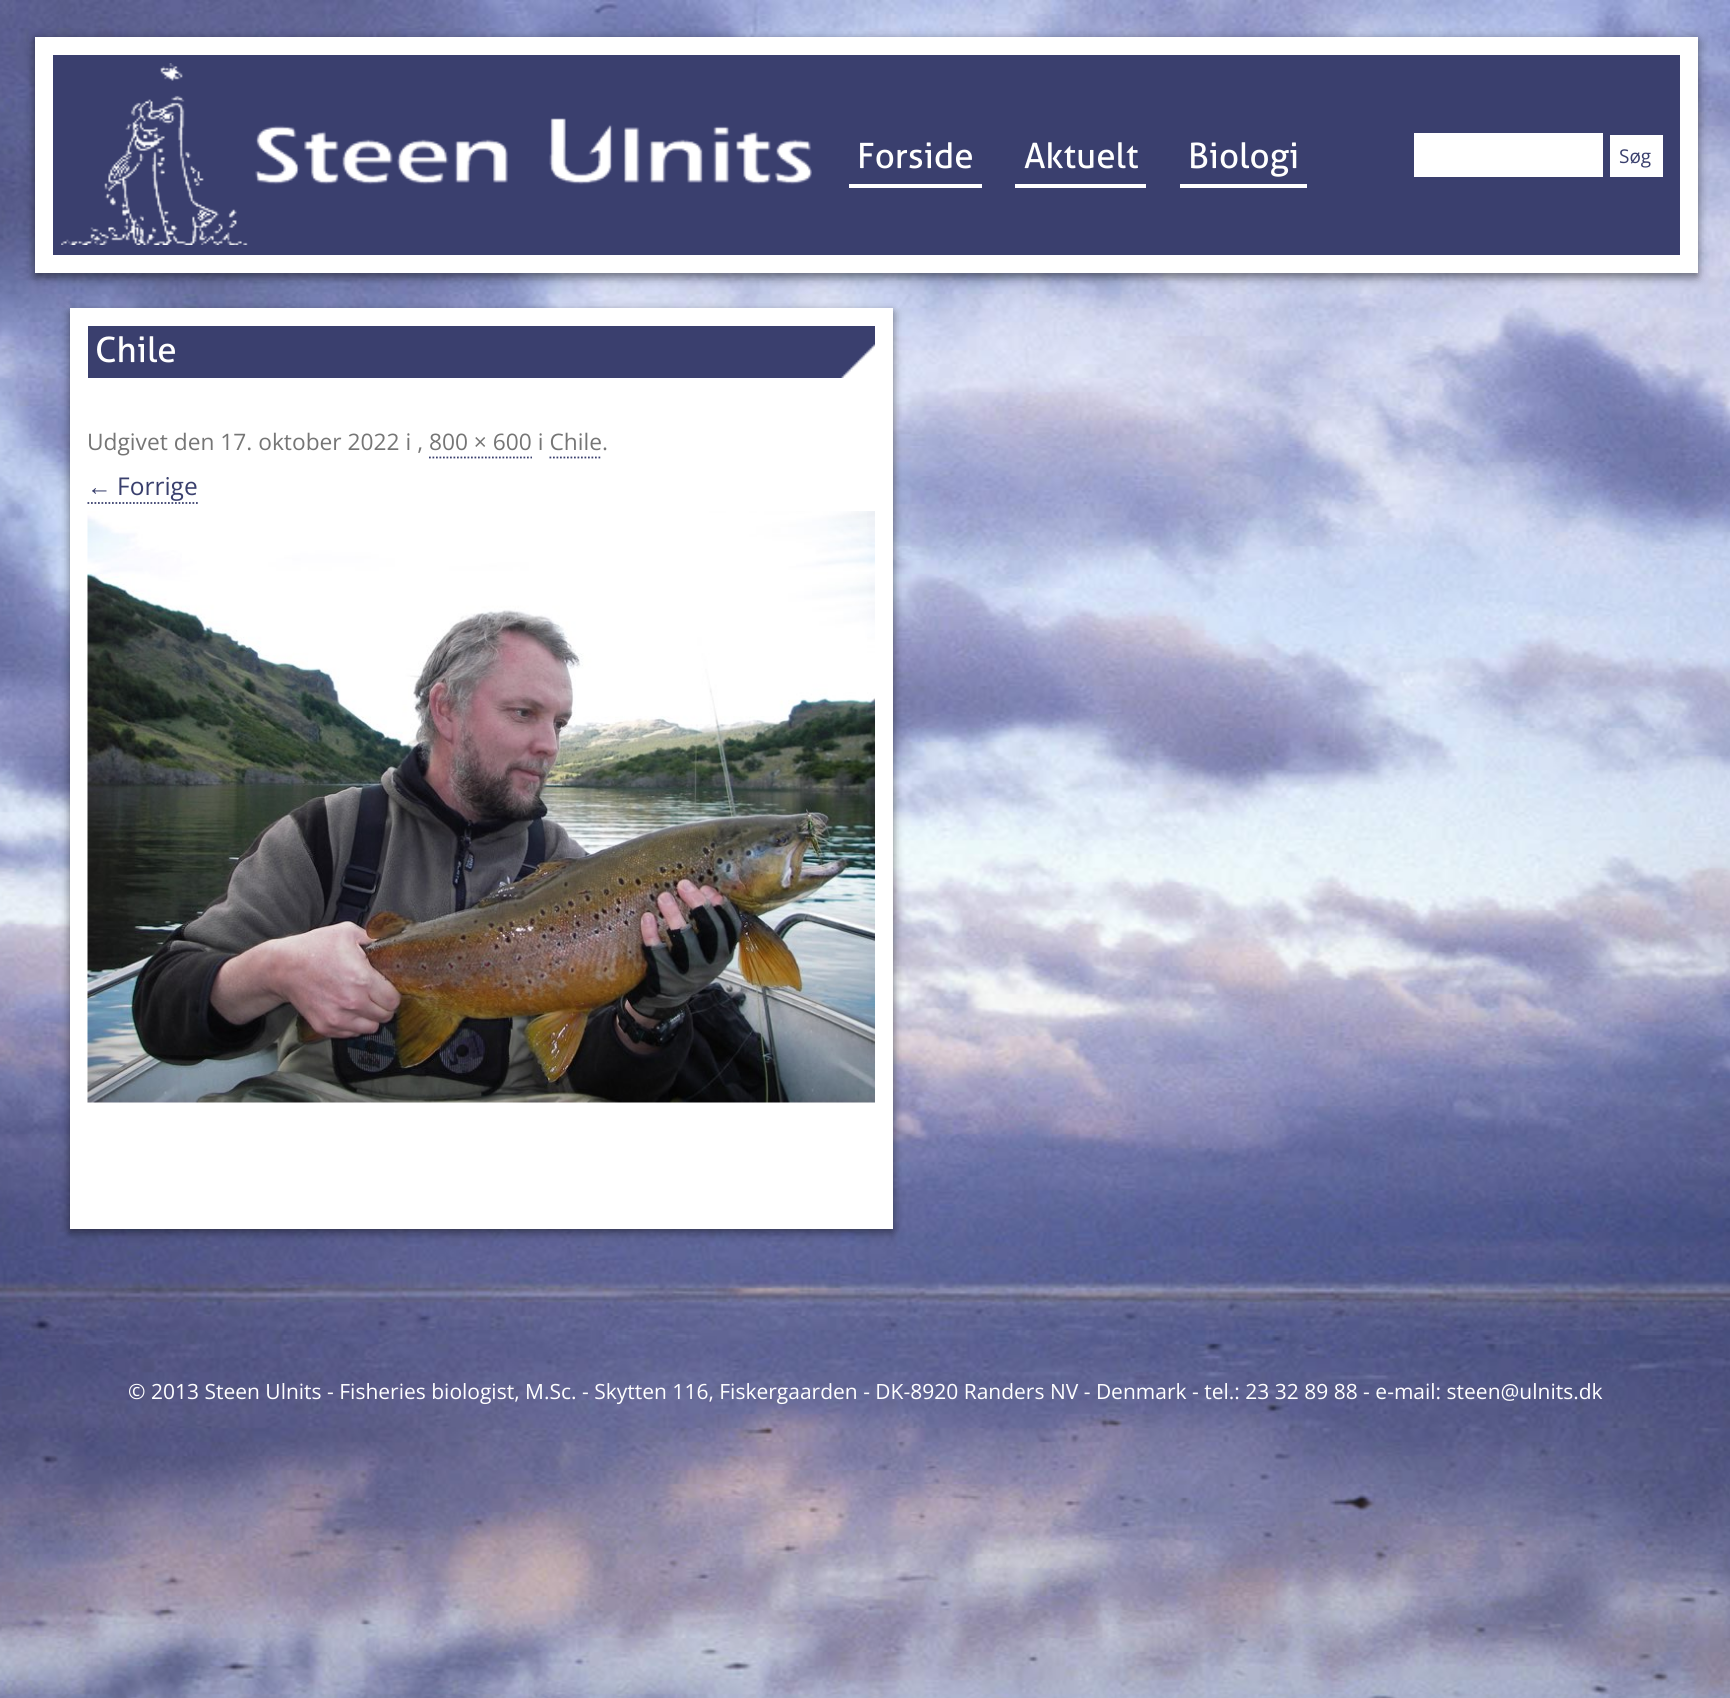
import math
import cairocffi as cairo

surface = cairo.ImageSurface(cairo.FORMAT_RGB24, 1730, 1698)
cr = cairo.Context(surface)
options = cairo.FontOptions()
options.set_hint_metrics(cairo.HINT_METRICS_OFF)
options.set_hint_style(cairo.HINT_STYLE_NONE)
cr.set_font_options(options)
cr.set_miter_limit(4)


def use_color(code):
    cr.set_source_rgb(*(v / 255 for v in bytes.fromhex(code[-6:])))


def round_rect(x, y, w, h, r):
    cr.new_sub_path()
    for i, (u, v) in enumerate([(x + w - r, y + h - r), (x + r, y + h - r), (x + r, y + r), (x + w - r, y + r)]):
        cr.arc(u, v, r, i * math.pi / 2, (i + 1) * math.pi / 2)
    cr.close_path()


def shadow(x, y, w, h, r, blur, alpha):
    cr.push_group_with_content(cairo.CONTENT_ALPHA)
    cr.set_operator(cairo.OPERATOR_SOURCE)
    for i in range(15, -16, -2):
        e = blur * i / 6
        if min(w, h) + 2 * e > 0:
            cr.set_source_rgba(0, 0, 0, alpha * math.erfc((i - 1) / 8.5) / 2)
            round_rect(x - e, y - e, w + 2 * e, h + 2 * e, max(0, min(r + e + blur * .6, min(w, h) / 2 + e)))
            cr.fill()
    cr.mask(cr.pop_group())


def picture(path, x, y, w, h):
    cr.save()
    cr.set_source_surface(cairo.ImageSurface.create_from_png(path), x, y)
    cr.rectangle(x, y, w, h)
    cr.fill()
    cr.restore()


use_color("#ffffff")
cr.paint()
picture("img1.png", 0, 0, 1730, 1698)
use_color("#000000")
shadow(35, 40, 1663, 237, 0, 5, 0.5)
use_color("#3a3f6e")
cr.rectangle(44, 46, 1645, 218)
cr.fill_preserve()
use_color("#ffffff")
cr.set_line_width(18)
cr.stroke()
picture("img2.png", 61, 63, 751, 182)
cr.rectangle(849, 184, 133, 4)
cr.fill()
cr.select_font_face("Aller")
cr.set_font_size(35)
cr.move_to(857, 168)
cr.show_text("Forside")
cr.rectangle(1015, 184, 131, 4)
cr.fill()
cr.move_to(1024, 168)
cr.show_text("Aktuelt")
cr.rectangle(1180, 184, 127, 4)
cr.fill()
cr.move_to(1188, 168)
cr.show_text("Biologi")
cr.rectangle(1414, 133, 189, 44)
cr.fill()
cr.rectangle(1610, 135, 53, 42)
cr.fill()
cr.select_font_face("Open Sans")
cr.set_font_size(19)
use_color("#393f6d")
cr.move_to(1619, 163)
cr.show_text("Søg")
use_color("#000000")
shadow(70, 312, 823, 920, 0, 5, 0.5)
use_color("#ffffff")
cr.rectangle(70, 308, 823, 921)
cr.fill()
use_color("#3a3f6e")
cr.rectangle(88, 326, 787, 52)
cr.fill()
picture("img3.png", 841, 344, 34, 34)
cr.select_font_face("Aller")
cr.set_font_size(35)
use_color("#ffffff")
cr.move_to(95, 362)
cr.show_text("Chile")
cr.select_font_face("Open Sans")
cr.set_font_size(22.75)
use_color("#757575")
cr.move_to(87, 450)
cr.show_text("Udgivet den 17. oktober 2022 i , 800 × 600 i Chile.")
cr.new_path()
cr.move_to(429, 457.5)
cr.line_to(532, 457.5)
use_color("#393f6d")
cr.set_line_width(1.8)
cr.set_dash([1.75, 1.75])
cr.stroke()
cr.new_path()
cr.move_to(549.5, 457.5)
cr.line_to(602, 457.5)
cr.stroke()
cr.select_font_face("Liberation Sans")
cr.set_font_size(24.5)
cr.move_to(87, 495)
cr.show_text("←")
cr.new_path()
cr.move_to(87.5, 503)
cr.line_to(198, 503)
cr.stroke()
cr.select_font_face("Open Sans")
cr.move_to(117, 495)
cr.show_text("Forrige")
picture("img4.png", 87, 511, 788, 592)
cr.set_font_size(21)
use_color("#ffffff")
cr.move_to(128, 1399)
cr.show_text("© 2013 Steen Ulnits - Fisheries biologist, M.Sc. - Skytten 116, Fiskergaarden - DK-8920 Randers NV - Denmark - tel.: 23 32 89 88 - e-mail: steen@ulnits.dk")
surface.write_to_png("result.png")
